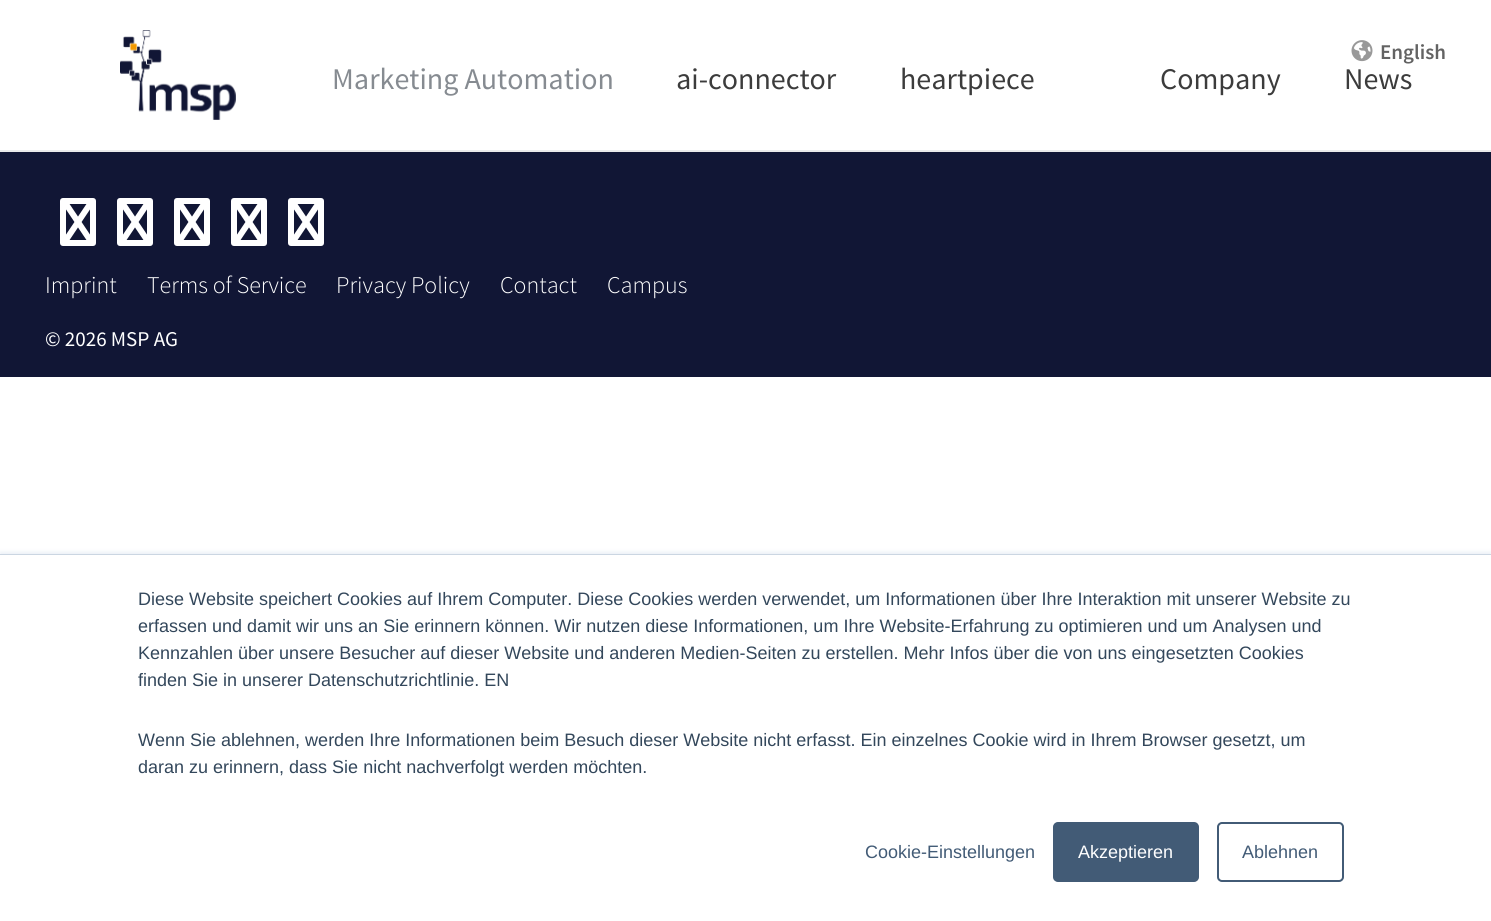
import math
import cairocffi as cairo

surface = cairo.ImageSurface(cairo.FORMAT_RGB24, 1491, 921)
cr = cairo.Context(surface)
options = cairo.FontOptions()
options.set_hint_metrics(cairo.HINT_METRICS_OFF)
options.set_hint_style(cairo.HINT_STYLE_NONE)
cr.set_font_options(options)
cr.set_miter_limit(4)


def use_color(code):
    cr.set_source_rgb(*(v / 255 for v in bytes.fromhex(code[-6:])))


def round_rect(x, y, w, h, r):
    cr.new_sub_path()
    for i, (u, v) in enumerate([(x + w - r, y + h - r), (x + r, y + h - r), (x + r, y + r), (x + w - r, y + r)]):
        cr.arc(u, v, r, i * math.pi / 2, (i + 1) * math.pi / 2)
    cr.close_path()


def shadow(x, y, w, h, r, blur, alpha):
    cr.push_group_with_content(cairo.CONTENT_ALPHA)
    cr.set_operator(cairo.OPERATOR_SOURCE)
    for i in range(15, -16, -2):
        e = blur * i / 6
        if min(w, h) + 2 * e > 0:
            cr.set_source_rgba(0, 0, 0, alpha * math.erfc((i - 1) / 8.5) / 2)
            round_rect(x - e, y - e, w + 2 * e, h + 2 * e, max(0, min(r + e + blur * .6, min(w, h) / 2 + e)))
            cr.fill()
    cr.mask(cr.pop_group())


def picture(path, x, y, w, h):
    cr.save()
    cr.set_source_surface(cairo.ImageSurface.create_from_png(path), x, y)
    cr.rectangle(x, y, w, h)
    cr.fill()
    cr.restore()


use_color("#ffffff")
cr.paint()
picture("img1.png", 120, 30, 116, 90)
picture("img2.png", 1351, 40, 22, 22)
cr.select_font_face("Source Sans Pro SemiBold")
cr.set_font_size(21)
use_color("#636363")
cr.move_to(1380, 59)
cr.show_text("English")
cr.select_font_face("Source Sans Pro")
cr.set_font_size(30)
use_color("#868b91")
cr.move_to(332, 89)
cr.show_text("Marketing Automation")
use_color("#3c3c3c")
cr.move_to(676, 89)
cr.show_text("ai-connector")
cr.move_to(900, 89)
cr.show_text("heartpiece")
cr.move_to(1160, 89)
cr.show_text("Company")
cr.move_to(1344, 89)
cr.show_text("News")
use_color("#eaeaea")
cr.rectangle(0, 150, 1491, 2)
cr.fill()
use_color("#111635")
cr.rectangle(0, 152, 1491, 225)
cr.fill()
picture("img3.png", 60, 198, 36, 48)
picture("img3.png", 117, 198, 36, 48)
picture("img3.png", 174, 198, 36, 48)
picture("img3.png", 231, 198, 36, 48)
picture("img3.png", 288, 198, 36, 48)
cr.select_font_face("Source Sans Pro Light")
cr.set_font_size(24)
use_color("#ffffff")
cr.move_to(45, 293)
cr.show_text("Imprint")
cr.move_to(147, 293)
cr.show_text("Terms of Service")
cr.move_to(336, 293)
cr.show_text("Privacy Policy")
cr.move_to(500, 293)
cr.show_text("Contact")
cr.move_to(607, 293)
cr.show_text("Campus")
cr.select_font_face("Source Sans Pro")
cr.set_font_size(21)
cr.move_to(45, 346)
cr.show_text("© 2026 MSP AG")
use_color("#eaf0f6")
shadow(0, 552, 1491, 368, 0, 2, 1)
use_color("#cbd6e2")
cr.rectangle(0, 554, 1491, 1)
cr.fill()
use_color("#ffffff")
cr.rectangle(0, 555, 1491, 366)
cr.fill()
cr.select_font_face("Liberation Sans")
cr.set_font_size(18)
use_color("#33475b")
cr.move_to(138, 605)
cr.show_text("Diese Website speichert Cookies auf Ihrem Computer. Diese Cookies werden verwendet, um Informationen über Ihre Interaktion mit unserer Website zu")
cr.move_to(138, 632)
cr.show_text("erfassen und damit wir uns an Sie erinnern können. Wir nutzen diese Informationen, um Ihre Website-Erfahrung zu optimieren und um Analysen und")
cr.move_to(138, 659)
cr.show_text("Kennzahlen über unsere Besucher auf dieser Website und anderen Medien-Seiten zu erstellen. Mehr Infos über die von uns eingesetzten Cookies")
cr.move_to(138, 686)
cr.show_text("finden Sie in unserer Datenschutzrichtlinie. EN")
cr.move_to(138, 746)
cr.show_text("Wenn Sie ablehnen, werden Ihre Informationen beim Besuch dieser Website nicht erfasst. Ein einzelnes Cookie wird in Ihrem Browser gesetzt, um")
cr.move_to(138, 773)
cr.show_text("daran zu erinnern, dass Sie nicht nachverfolgt werden möchten.")
use_color("#425b76")
cr.move_to(865, 858)
cr.show_text("Cookie-Einstellungen")
round_rect(1054, 823, 144, 58, 4)
cr.fill_preserve()
cr.stroke()
use_color("#ffffff")
cr.move_to(1078, 858)
cr.show_text("Akzeptieren")
round_rect(1218, 823, 125, 58, 4)
use_color("#425b76")
cr.stroke()
cr.move_to(1242, 858)
cr.show_text("Ablehnen")
surface.write_to_png("result.png")
